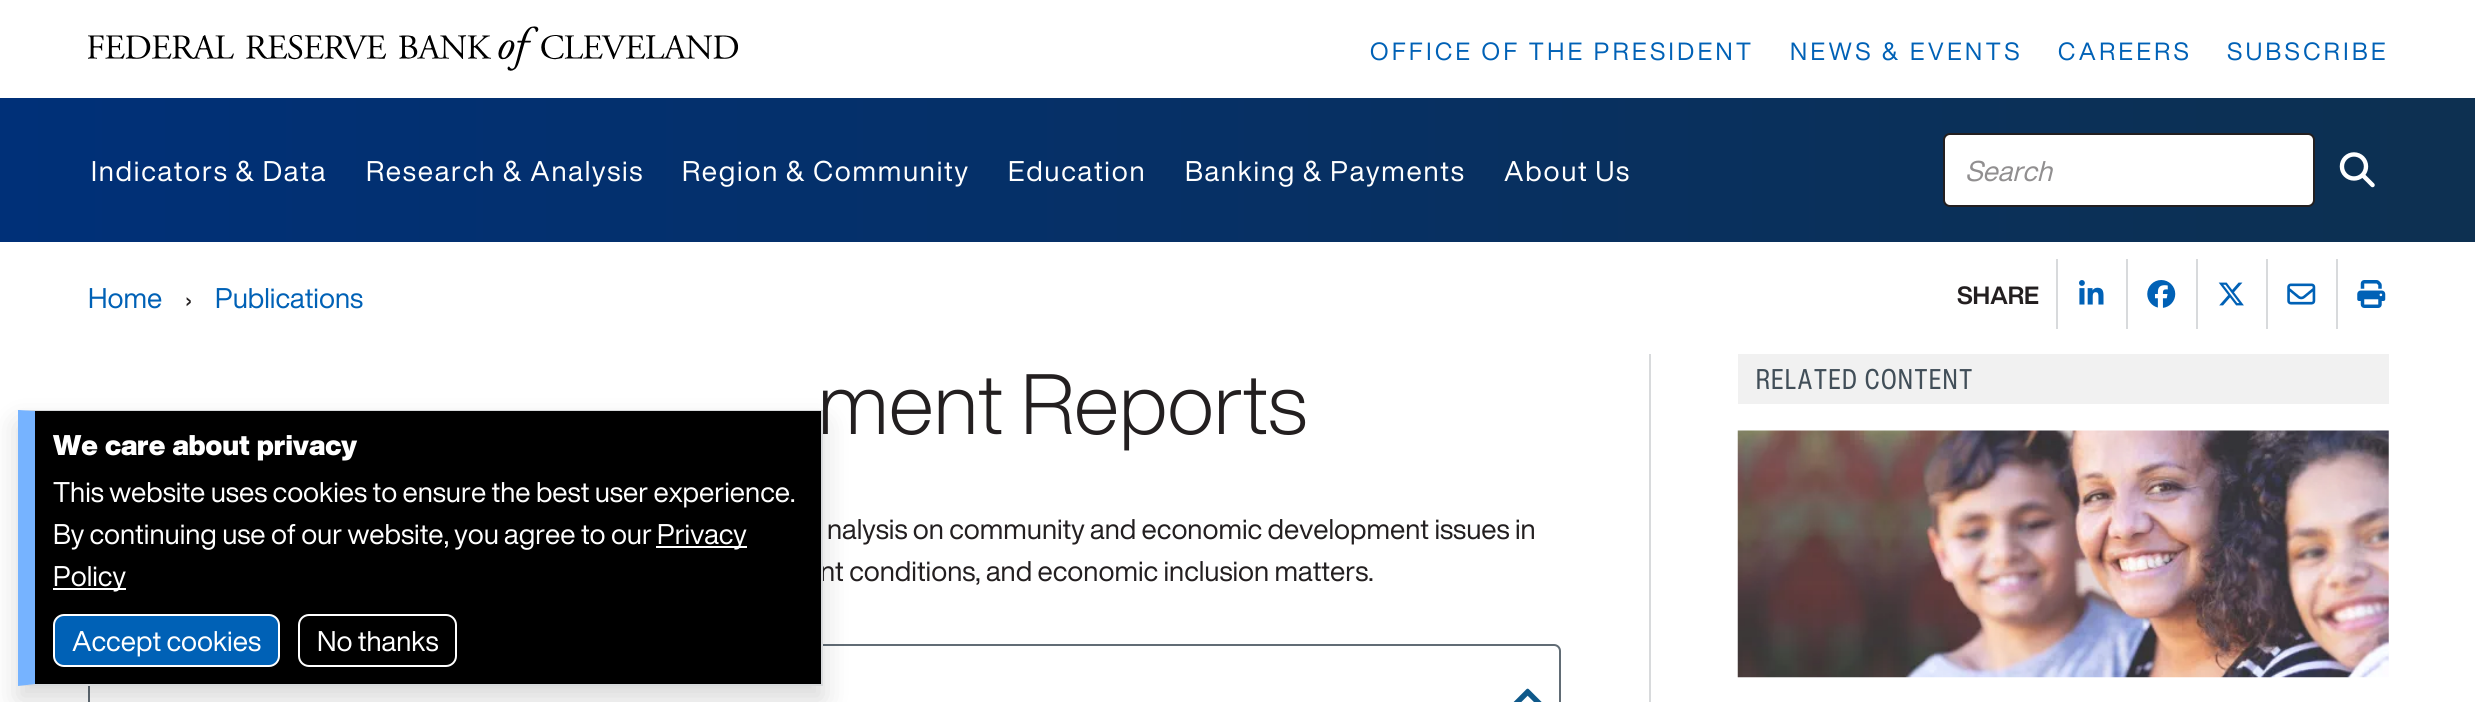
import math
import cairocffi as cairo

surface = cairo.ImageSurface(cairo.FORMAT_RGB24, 2475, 702)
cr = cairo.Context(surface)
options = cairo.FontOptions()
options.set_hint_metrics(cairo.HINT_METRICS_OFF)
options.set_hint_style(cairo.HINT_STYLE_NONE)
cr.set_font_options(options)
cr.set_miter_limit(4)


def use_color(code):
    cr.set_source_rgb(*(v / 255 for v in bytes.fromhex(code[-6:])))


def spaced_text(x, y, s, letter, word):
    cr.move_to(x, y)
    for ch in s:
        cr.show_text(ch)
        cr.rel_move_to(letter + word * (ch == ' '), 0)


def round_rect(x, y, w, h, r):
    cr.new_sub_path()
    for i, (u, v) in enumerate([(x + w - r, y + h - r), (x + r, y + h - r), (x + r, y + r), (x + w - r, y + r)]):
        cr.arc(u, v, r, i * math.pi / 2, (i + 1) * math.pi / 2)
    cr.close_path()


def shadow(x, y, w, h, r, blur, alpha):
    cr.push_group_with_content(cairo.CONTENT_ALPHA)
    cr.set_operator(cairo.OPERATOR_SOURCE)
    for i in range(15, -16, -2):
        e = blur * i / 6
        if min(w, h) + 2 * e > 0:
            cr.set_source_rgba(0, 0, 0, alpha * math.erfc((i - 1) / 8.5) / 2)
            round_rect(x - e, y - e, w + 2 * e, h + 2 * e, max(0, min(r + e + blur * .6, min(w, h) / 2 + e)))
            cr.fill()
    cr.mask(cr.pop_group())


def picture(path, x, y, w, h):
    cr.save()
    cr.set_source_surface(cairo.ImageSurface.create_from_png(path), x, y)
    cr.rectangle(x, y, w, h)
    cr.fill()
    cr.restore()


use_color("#ffffff")
cr.paint()
picture("img1.png", 88, 26, 651, 45)
cr.select_font_face("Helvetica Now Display")
cr.set_font_size(24.5)
use_color("#0061b6")
spaced_text(1370, 60, "OFFICE OF THE PRESIDENT", 3.5, 0)
spaced_text(1790, 60, "NEWS & EVENTS", 3.5, 0)
spaced_text(2058, 60, "CAREERS", 3.5, 0)
spaced_text(2227, 60, "SUBSCRIBE", 3.5, 0)
gradient = cairo.LinearGradient(0, 170, 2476, 170)
gradient.add_color_stop_rgba(0, 0, 0.188, 0.471, 1)
gradient.add_color_stop_rgba(1, 0.051, 0.188, 0.318, 1)
cr.set_source(gradient)
cr.rectangle(0, 98, 2475, 144)
cr.fill()
cr.set_font_size(28)
use_color("#ffffff")
spaced_text(91, 181, "Indicators & Data", 1.75, 0)
spaced_text(366, 181, "Research & Analysis", 1.75, 0)
spaced_text(682, 181, "Region & Community", 1.75, 0)
spaced_text(1008, 181, "Education", 1.75, 0)
spaced_text(1185, 181, "Banking & Payments", 1.75, 0)
spaced_text(1504, 181, "About Us", 1.75, 0)
round_rect(1944, 134, 370, 72, 6)
cr.fill_preserve()
use_color("#231f20")
cr.stroke()
cr.select_font_face("Helvetica Now Display", cairo.FONT_SLANT_ITALIC)
use_color("#918f90")
cr.move_to(1965, 181)
cr.show_text("Search")
picture("img2.png", 2339, 152, 36, 36)
cr.select_font_face("Helvetica Now Display")
use_color("#0061b6")
cr.move_to(88, 308)
cr.show_text("Home")
cr.set_font_size(24.5)
use_color("#231f20")
cr.move_to(185, 308)
cr.show_text("›")
cr.set_font_size(28)
use_color("#0061b6")
cr.move_to(215, 308)
cr.show_text("Publications")
cr.select_font_face("Helvetica Now Display", cairo.FONT_SLANT_NORMAL, cairo.FONT_WEIGHT_BOLD)
cr.set_font_size(24.5)
use_color("#231f20")
cr.move_to(1957, 304)
cr.show_text("SHARE")
use_color("#d8dadc")
cr.rectangle(2056, 259, 2, 70)
cr.fill()
picture("img3.png", 2079, 280, 25, 25)
cr.rectangle(2126, 259, 2, 70)
cr.fill()
picture("img4.png", 2147, 280, 29, 28)
cr.rectangle(2196, 259, 2, 70)
cr.fill()
picture("img5.png", 2218, 282, 26, 24)
cr.rectangle(2266, 259, 2, 70)
cr.fill()
picture("img6.png", 2287, 283, 29, 22)
cr.rectangle(2336, 259, 2, 70)
cr.fill()
picture("img7.png", 2357, 280, 29, 28)
cr.rectangle(1649, 354, 2, 348)
cr.fill()
cr.select_font_face("Helvetica Now Display Light")
cr.set_font_size(84)
use_color("#231f20")
cr.move_to(818, 434)
cr.show_text("ment Reports")
cr.select_font_face("Helvetica Now Display")
cr.set_font_size(28)
cr.move_to(827, 539)
cr.show_text("nalysis on community and economic development issues in")
cr.move_to(820, 581)
cr.show_text("nt conditions, and economic inclusion matters.")
round_rect(89, 645, 1471, 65, 6)
use_color("#616c75")
cr.stroke()
picture("img8.png", 1513, 688, 29, 14)
use_color("#f1f1f1")
cr.rectangle(1738, 354, 651, 50)
cr.fill()
cr.select_font_face("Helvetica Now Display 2")
use_color("#414e58")
spaced_text(1756, 389, "RELATED CONTENT", 1.75, 0)
picture("img9.png", 1737, 430, 652, 248)
use_color("#000000")
shadow(18, 424, 805, 276, 0, 14, 0.15)
use_color("#000000")
cr.rectangle(35, 411, 786, 273)
cr.fill()
use_color("#d8dadc")
cr.new_path()
cr.move_to(18, 410)
cr.line_to(822, 410)
cr.line_to(821, 411)
cr.line_to(35, 411)
cr.close_path()
cr.fill()
cr.rectangle(821, 410, 2, 276)
cr.fill()
cr.new_path()
cr.move_to(822, 686)
cr.line_to(18, 686)
cr.line_to(35, 684)
cr.line_to(821, 684)
cr.close_path()
cr.fill()
use_color("#76b3ff")
cr.new_path()
cr.move_to(18, 686)
cr.line_to(18, 410)
cr.line_to(35, 411)
cr.line_to(35, 684)
cr.close_path()
cr.fill()
cr.select_font_face("Helvetica Now Display Black")
use_color("#ffffff")
cr.move_to(53, 455)
cr.show_text("We care about privacy")
cr.select_font_face("Helvetica Now Display")
cr.move_to(53, 502)
cr.show_text("This website uses cookies to ensure the best user experience.")
cr.move_to(53, 544)
cr.show_text("By continuing use of our website, you agree to our")
cr.rectangle(656, 546, 91, 2)
cr.fill()
cr.move_to(657, 544)
cr.show_text("Privacy")
cr.rectangle(53, 588, 73, 2)
cr.fill()
cr.move_to(53, 586)
cr.show_text("Policy")
use_color("#0061b6")
round_rect(54, 615, 225, 51, 10)
cr.fill_preserve()
use_color("#ffffff")
cr.stroke()
cr.move_to(72, 651)
cr.show_text("Accept cookies")
round_rect(299, 615, 157, 51, 10)
cr.stroke()
cr.move_to(317, 651)
cr.show_text("No thanks")
surface.write_to_png("result.png")
